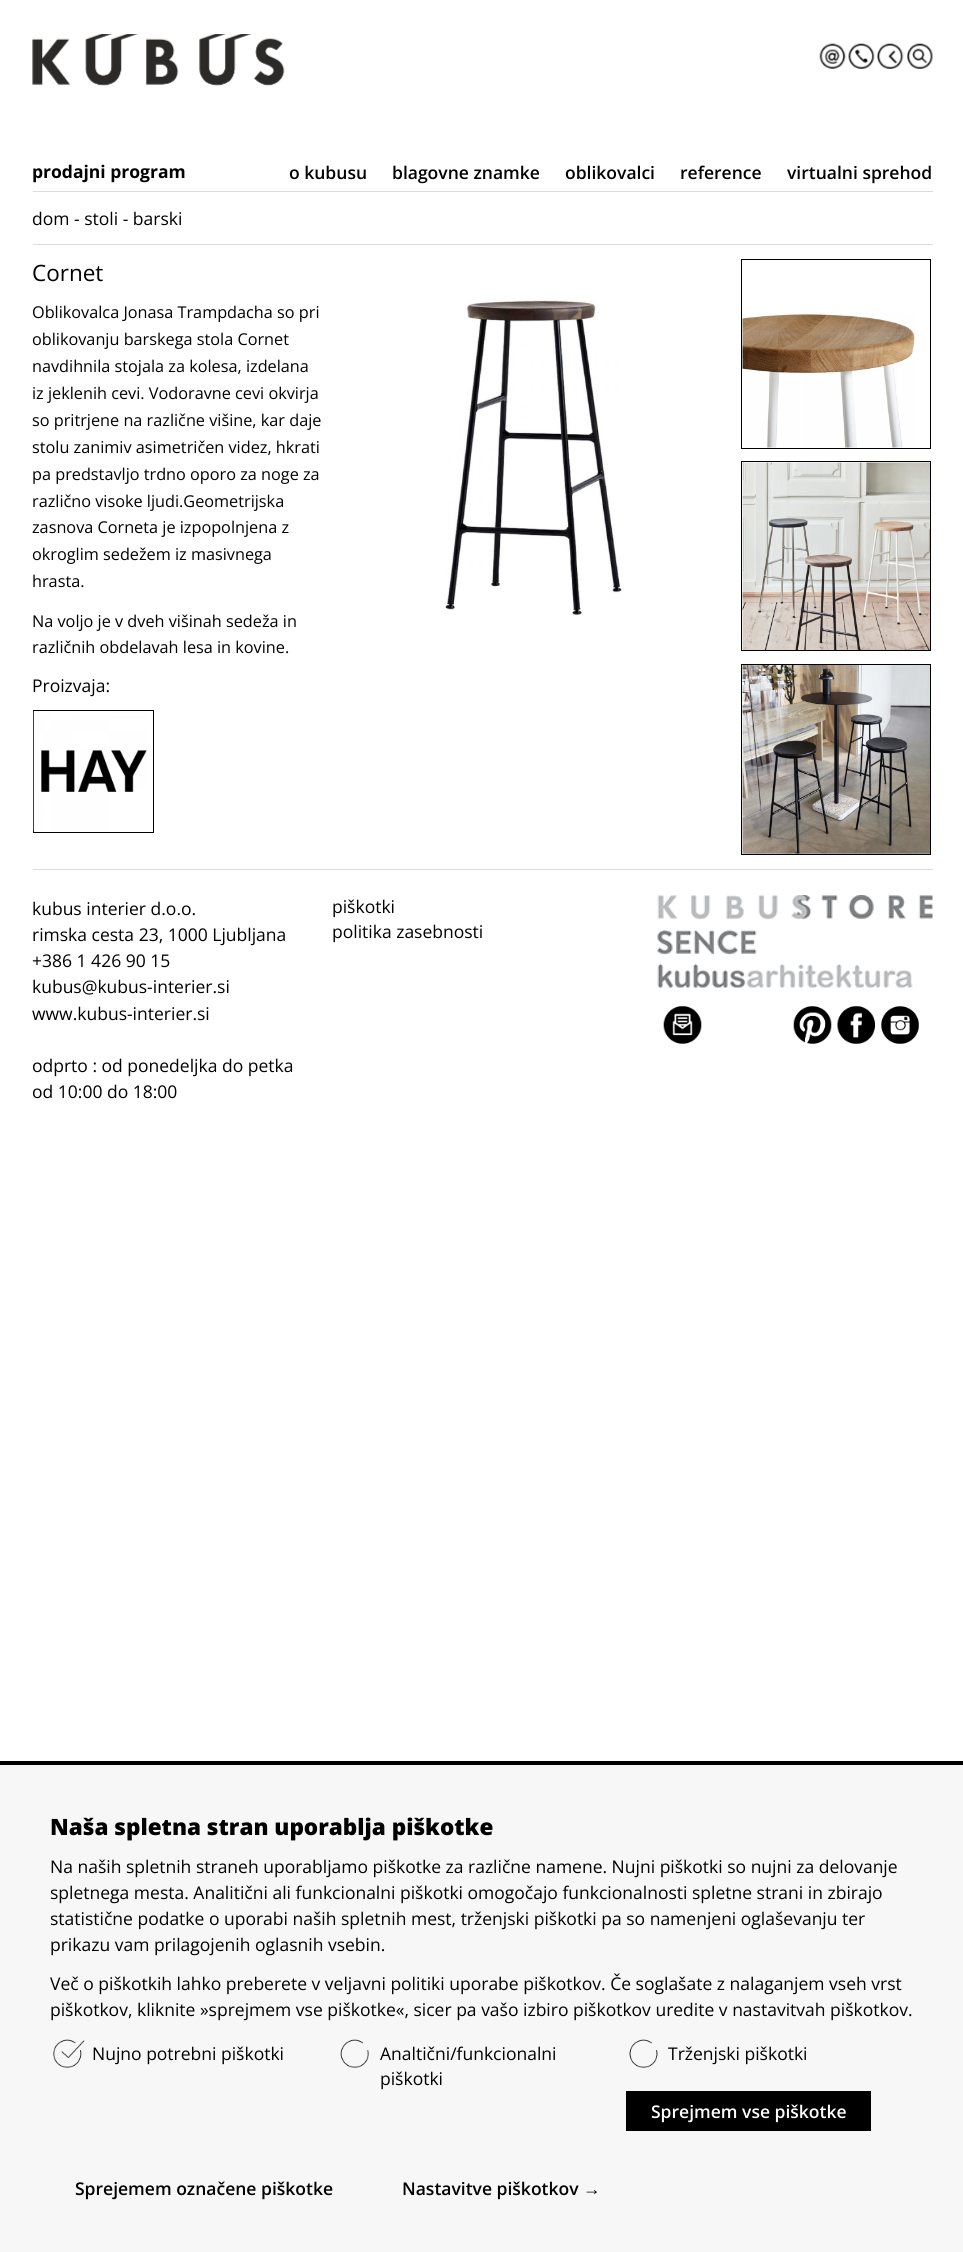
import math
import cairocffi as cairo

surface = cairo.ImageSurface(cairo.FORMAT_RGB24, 963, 2252)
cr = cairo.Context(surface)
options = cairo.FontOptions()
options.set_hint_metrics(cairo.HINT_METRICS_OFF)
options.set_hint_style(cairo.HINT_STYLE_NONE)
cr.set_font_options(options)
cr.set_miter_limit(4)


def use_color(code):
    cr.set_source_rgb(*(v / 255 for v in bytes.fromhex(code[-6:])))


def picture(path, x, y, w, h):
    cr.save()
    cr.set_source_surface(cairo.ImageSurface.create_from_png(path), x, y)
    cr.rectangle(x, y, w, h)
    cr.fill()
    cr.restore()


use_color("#ffffff")
cr.paint()
picture("img1.png", 32, 34, 253, 52)
picture("img2.png", 819, 43, 27, 26)
picture("img3.png", 848, 43, 27, 26)
picture("img4.png", 877, 43, 27, 26)
picture("img5.png", 907, 43, 26, 26)
use_color("#dddddd")
cr.rectangle(33, 191, 900, 1)
cr.fill()
cr.select_font_face("Open Sans", cairo.FONT_SLANT_NORMAL, cairo.FONT_WEIGHT_BOLD)
cr.set_font_size(17.5)
use_color("#000000")
cr.move_to(32, 178)
cr.show_text("prodajni program")
cr.select_font_face("Open Sans SemiBold")
cr.move_to(289, 179)
cr.show_text("o kubusu")
cr.move_to(392, 179)
cr.show_text("blagovne znamke")
cr.move_to(565, 179)
cr.show_text("oblikovalci")
cr.move_to(680, 179)
cr.show_text("reference")
cr.move_to(787, 179)
cr.show_text("virtualni sprehod")
use_color("#dddddd")
cr.rectangle(33, 244, 900, 1)
cr.fill()
cr.select_font_face("Open Sans")
use_color("#000000")
cr.move_to(32, 225)
cr.show_text("dom - stoli - barski")
cr.set_font_size(22.5)
cr.move_to(32, 281)
cr.show_text("Cornet")
cr.set_font_size(16.25)
cr.move_to(32, 318)
cr.show_text("Oblikovalca Jonasa Trampdacha so pri")
cr.move_to(32, 345)
cr.show_text("oblikovanju barskega stola Cornet")
cr.move_to(32, 372)
cr.show_text("navdihnila stojala za kolesa, izdelana")
cr.move_to(32, 399)
cr.show_text("iz jeklenih cevi. Vodoravne cevi okvirja")
cr.move_to(32, 426)
cr.show_text("so pritrjene na različne višine, kar daje")
cr.move_to(32, 453)
cr.show_text("stolu zanimiv asimetričen videz, hkrati")
cr.move_to(32, 480)
cr.show_text("pa predstavljo trdno oporo za noge za")
cr.move_to(32, 507)
cr.show_text("različno visoke ljudi.Geometrijska")
cr.move_to(32, 533)
cr.show_text("zasnova Corneta je izpopolnjena z")
cr.move_to(32, 560)
cr.show_text("okroglim sedežem iz masivnega")
cr.move_to(32, 587)
cr.show_text("hrasta.")
cr.move_to(32, 627)
cr.show_text("Na voljo je v dveh višinah sedeža in")
cr.move_to(32, 653)
cr.show_text("različnih obdelavah lesa in kovine.")
cr.set_font_size(17.5)
cr.move_to(32, 692)
cr.show_text("Proizvaja:")
cr.rectangle(33.5, 710.5, 120, 122)
cr.set_line_width(1)
cr.stroke()
picture("img6.png", 33, 711, 114, 121)
picture("img7.png", 445, 300, 177, 316)
cr.rectangle(741.5, 259.5, 189, 189)
cr.stroke()
picture("img8.png", 742, 314, 173, 134)
cr.rectangle(741.5, 461.5, 189, 189)
cr.stroke()
picture("img9.png", 742, 462, 188, 188)
cr.rectangle(741.5, 664.5, 189, 190)
cr.stroke()
picture("img10.png", 742, 665, 188, 189)
use_color("#dddddd")
cr.rectangle(33, 869, 900, 1)
cr.fill()
use_color("#000000")
cr.move_to(32, 915)
cr.show_text("kubus interier d.o.o.")
cr.move_to(32, 941)
cr.show_text("rimska cesta 23, 1000 Ljubljana")
cr.move_to(32, 967)
cr.show_text("+386 1 426 90 15")
cr.move_to(32, 993)
cr.show_text("kubus@kubus-interier.si")
cr.move_to(32, 1020)
cr.show_text("www.kubus-interier.si")
cr.move_to(32, 1072)
cr.show_text("odprto : od ponedeljka do petka")
cr.move_to(32, 1098)
cr.show_text("od 10:00 do 18:00")
cr.move_to(332, 913)
cr.show_text("piškotki")
cr.move_to(332, 938)
cr.show_text("politika zasebnosti")
picture("img11.png", 657, 895, 276, 93)
picture("img12.png", 663, 1006, 39, 38)
picture("img13.png", 793, 1006, 39, 38)
picture("img14.png", 837, 1006, 38, 38)
picture("img15.png", 881, 1006, 38, 38)
use_color("#f7f7f7")
cr.rectangle(0, 1765, 963, 487)
cr.fill()
use_color("#000000")
cr.rectangle(0, 1761, 963, 4)
cr.fill()
cr.select_font_face("Open Sans ExtraBold")
cr.set_font_size(22.5)
cr.move_to(50, 1835)
cr.show_text("Naša spletna stran uporablja piškotke")
cr.select_font_face("Open Sans")
cr.set_font_size(17.5)
cr.move_to(50, 1873)
cr.show_text("Na naših spletnih straneh uporabljamo piškotke za različne namene. Nujni piškotki so nujni za delovanje")
cr.move_to(50, 1899)
cr.show_text("spletnega mesta. Analitični ali funkcionalni piškotki omogočajo funkcionalnosti spletne strani in zbirajo")
cr.move_to(50, 1925)
cr.show_text("statistične podatke o uporabi naših spletnih mest, trženjski piškotki pa so namenjeni oglaševanju ter")
cr.move_to(50, 1951)
cr.show_text("prikazu vam prilagojenih oglasnih vsebin.")
cr.move_to(50, 1990)
cr.show_text("Več o piškotkih lahko preberete v veljavni politiki uporabe piškotkov. Če soglašate z nalaganjem vseh vrst")
cr.move_to(50, 2016)
cr.show_text("piškotkov, kliknite »sprejmem vse piškotke«, sicer pa vašo izbiro piškotkov uredite v nastavitvah piškotkov.")
picture("img16.png", 53, 2039, 32, 29)
cr.move_to(92, 2060)
cr.show_text("Nujno potrebni piškotki")
picture("img17.png", 340, 2039, 29, 29)
cr.move_to(380, 2060)
cr.show_text("Analtični/funkcionalni")
cr.move_to(380, 2085)
cr.show_text("piškotki")
picture("img18.png", 629, 2039, 29, 29)
cr.move_to(668, 2060)
cr.show_text("Trženjski piškotki")
cr.rectangle(626, 2091, 245, 40)
cr.fill()
cr.select_font_face("Open Sans SemiBold")
use_color("#ffffff")
cr.move_to(651, 2118)
cr.show_text("Sprejmem vse piškotke")
use_color("#000000")
cr.move_to(75, 2195)
cr.show_text("Sprejemem označene piškotke")
cr.move_to(402, 2195)
cr.show_text("Nastavitve piškotkov")
cr.select_font_face("Liberation Sans", cairo.FONT_SLANT_NORMAL, cairo.FONT_WEIGHT_BOLD)
cr.move_to(583, 2195)
cr.show_text("→")
surface.write_to_png("result.png")
